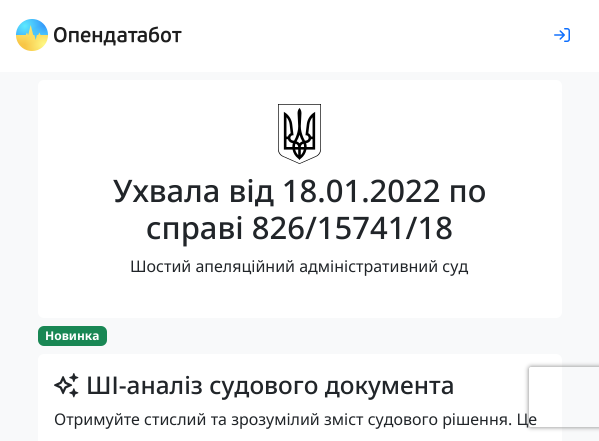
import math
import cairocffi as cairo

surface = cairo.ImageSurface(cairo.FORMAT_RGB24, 599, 441)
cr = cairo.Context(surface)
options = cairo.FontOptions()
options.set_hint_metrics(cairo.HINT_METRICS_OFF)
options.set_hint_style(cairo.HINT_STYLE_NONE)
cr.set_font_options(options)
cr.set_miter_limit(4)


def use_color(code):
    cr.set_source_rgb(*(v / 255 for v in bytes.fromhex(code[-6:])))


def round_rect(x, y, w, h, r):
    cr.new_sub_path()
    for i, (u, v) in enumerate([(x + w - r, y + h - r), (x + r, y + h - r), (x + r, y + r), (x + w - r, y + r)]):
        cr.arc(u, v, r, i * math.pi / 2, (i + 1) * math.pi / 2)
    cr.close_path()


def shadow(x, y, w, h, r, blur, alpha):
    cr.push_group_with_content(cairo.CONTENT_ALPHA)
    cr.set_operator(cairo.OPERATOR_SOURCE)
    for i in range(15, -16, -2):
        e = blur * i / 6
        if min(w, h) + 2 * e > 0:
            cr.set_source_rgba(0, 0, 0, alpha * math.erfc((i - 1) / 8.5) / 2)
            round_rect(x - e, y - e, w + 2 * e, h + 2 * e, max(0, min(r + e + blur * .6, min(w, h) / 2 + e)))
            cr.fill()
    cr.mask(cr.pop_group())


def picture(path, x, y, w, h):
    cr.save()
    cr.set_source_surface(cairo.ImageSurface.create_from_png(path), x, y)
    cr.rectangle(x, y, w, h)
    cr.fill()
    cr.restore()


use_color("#f8f9fa")
cr.paint()
use_color("#ffffff")
cr.rectangle(0, 0, 599, 72)
cr.fill()
picture("img1.png", 16, 19, 166, 32)
picture("img2.png", 554, 28, 16, 14)
round_rect(38, 80, 524, 238, 6)
cr.fill()
picture("img3.png", 278, 104, 43, 60)
cr.select_font_face("Noto Sans Medium")
cr.set_font_size(31)
use_color("#212529")
cr.move_to(113, 202)
cr.show_text("Ухвала від 18.01.2022 по")
cr.move_to(146, 239)
cr.show_text("справі 826/15741/18")
cr.select_font_face("Noto Sans")
cr.set_font_size(16)
cr.move_to(130, 272)
cr.show_text("Шостий апеляційний адміністративний суд")
use_color("#198754")
round_rect(38, 326, 69, 20, 6)
cr.fill()
cr.select_font_face("Noto Sans", cairo.FONT_SLANT_NORMAL, cairo.FONT_WEIGHT_BOLD)
cr.set_font_size(12)
use_color("#ffffff")
cr.move_to(45, 340)
cr.show_text("Новинка")
round_rect(38, 354, 524, 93, 6)
cr.fill()
picture("img4.png", 54, 373, 25, 25)
cr.select_font_face("Noto Sans Medium")
cr.set_font_size(24.4)
use_color("#212529")
cr.move_to(86, 394)
cr.show_text("ШІ-аналіз судового документа")
cr.select_font_face("Noto Sans")
cr.set_font_size(16)
cr.move_to(54, 425)
cr.show_text("Отримуйте стислий та зрозумілий зміст судового рішення. Це")
cr.save()
cr.set_fill_rule(cairo.FILL_RULE_EVEN_ODD)
cr.new_path()
cr.move_to(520, 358)
cr.line_to(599, 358)
cr.line_to(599, 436)
cr.line_to(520, 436)
cr.close_path()
cr.move_to(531, 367)
cr.line_to(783, 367)
cr.curve_to(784, 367, 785, 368, 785, 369)
cr.line_to(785, 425)
cr.curve_to(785, 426, 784, 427, 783, 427)
cr.line_to(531, 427)
cr.curve_to(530, 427, 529, 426, 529, 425)
cr.line_to(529, 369)
cr.curve_to(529, 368, 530, 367, 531, 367)
cr.close_path()
cr.clip()
use_color("#808080")
shadow(529, 367, 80, 60, 2, 2.5, 1)
cr.restore()
surface.write_to_png("result.png")
